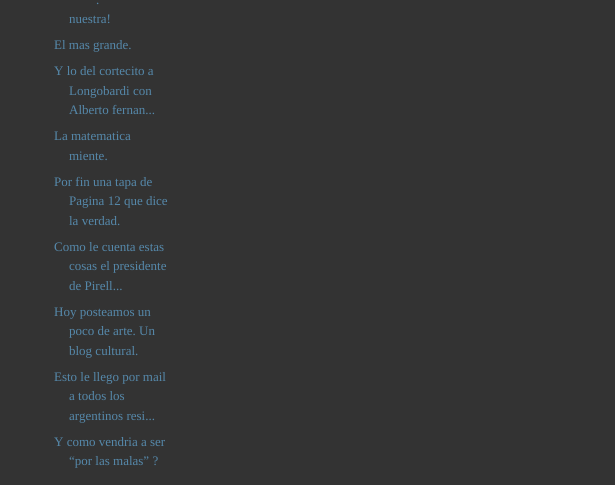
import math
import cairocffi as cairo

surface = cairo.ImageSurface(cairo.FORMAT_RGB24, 615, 485)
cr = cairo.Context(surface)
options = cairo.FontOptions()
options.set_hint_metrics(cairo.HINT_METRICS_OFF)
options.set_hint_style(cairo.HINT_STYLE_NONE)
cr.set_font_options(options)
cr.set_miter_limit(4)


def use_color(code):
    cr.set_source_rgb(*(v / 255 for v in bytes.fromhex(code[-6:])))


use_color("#333333")
cr.paint()
cr.select_font_face("Liberation Serif")
cr.set_font_size(13)
use_color("#5588aa")
cr.move_to(96, 4)
cr.show_text(".")
cr.move_to(69, 23)
cr.show_text("nuestra!")
cr.move_to(54, 49)
cr.show_text("El mas grande.")
cr.move_to(54, 75)
cr.show_text("Y lo del cortecito a")
cr.move_to(69, 95)
cr.show_text("Longobardi con")
cr.move_to(69, 114)
cr.show_text("Alberto fernan...")
cr.move_to(54, 140)
cr.show_text("La matematica")
cr.move_to(69, 160)
cr.show_text("miente.")
cr.move_to(54, 186)
cr.show_text("Por fin una tapa de")
cr.move_to(69, 205)
cr.show_text("Pagina 12 que dice")
cr.move_to(69, 225)
cr.show_text("la verdad.")
cr.move_to(54, 251)
cr.show_text("Como le cuenta estas")
cr.move_to(69, 270)
cr.show_text("cosas el presidente")
cr.move_to(69, 290)
cr.show_text("de Pirell...")
cr.move_to(54, 316)
cr.show_text("Hoy posteamos un")
cr.move_to(69, 335)
cr.show_text("poco de arte. Un")
cr.move_to(69, 355)
cr.show_text("blog cultural.")
cr.move_to(54, 381)
cr.show_text("Esto le llego por mail")
cr.move_to(69, 400)
cr.show_text("a todos los")
cr.move_to(69, 420)
cr.show_text("argentinos resi...")
cr.move_to(54, 446)
cr.show_text("Y como vendria a ser")
cr.move_to(69, 465)
cr.show_text("“por las malas” ?")
surface.write_to_png("result.png")
